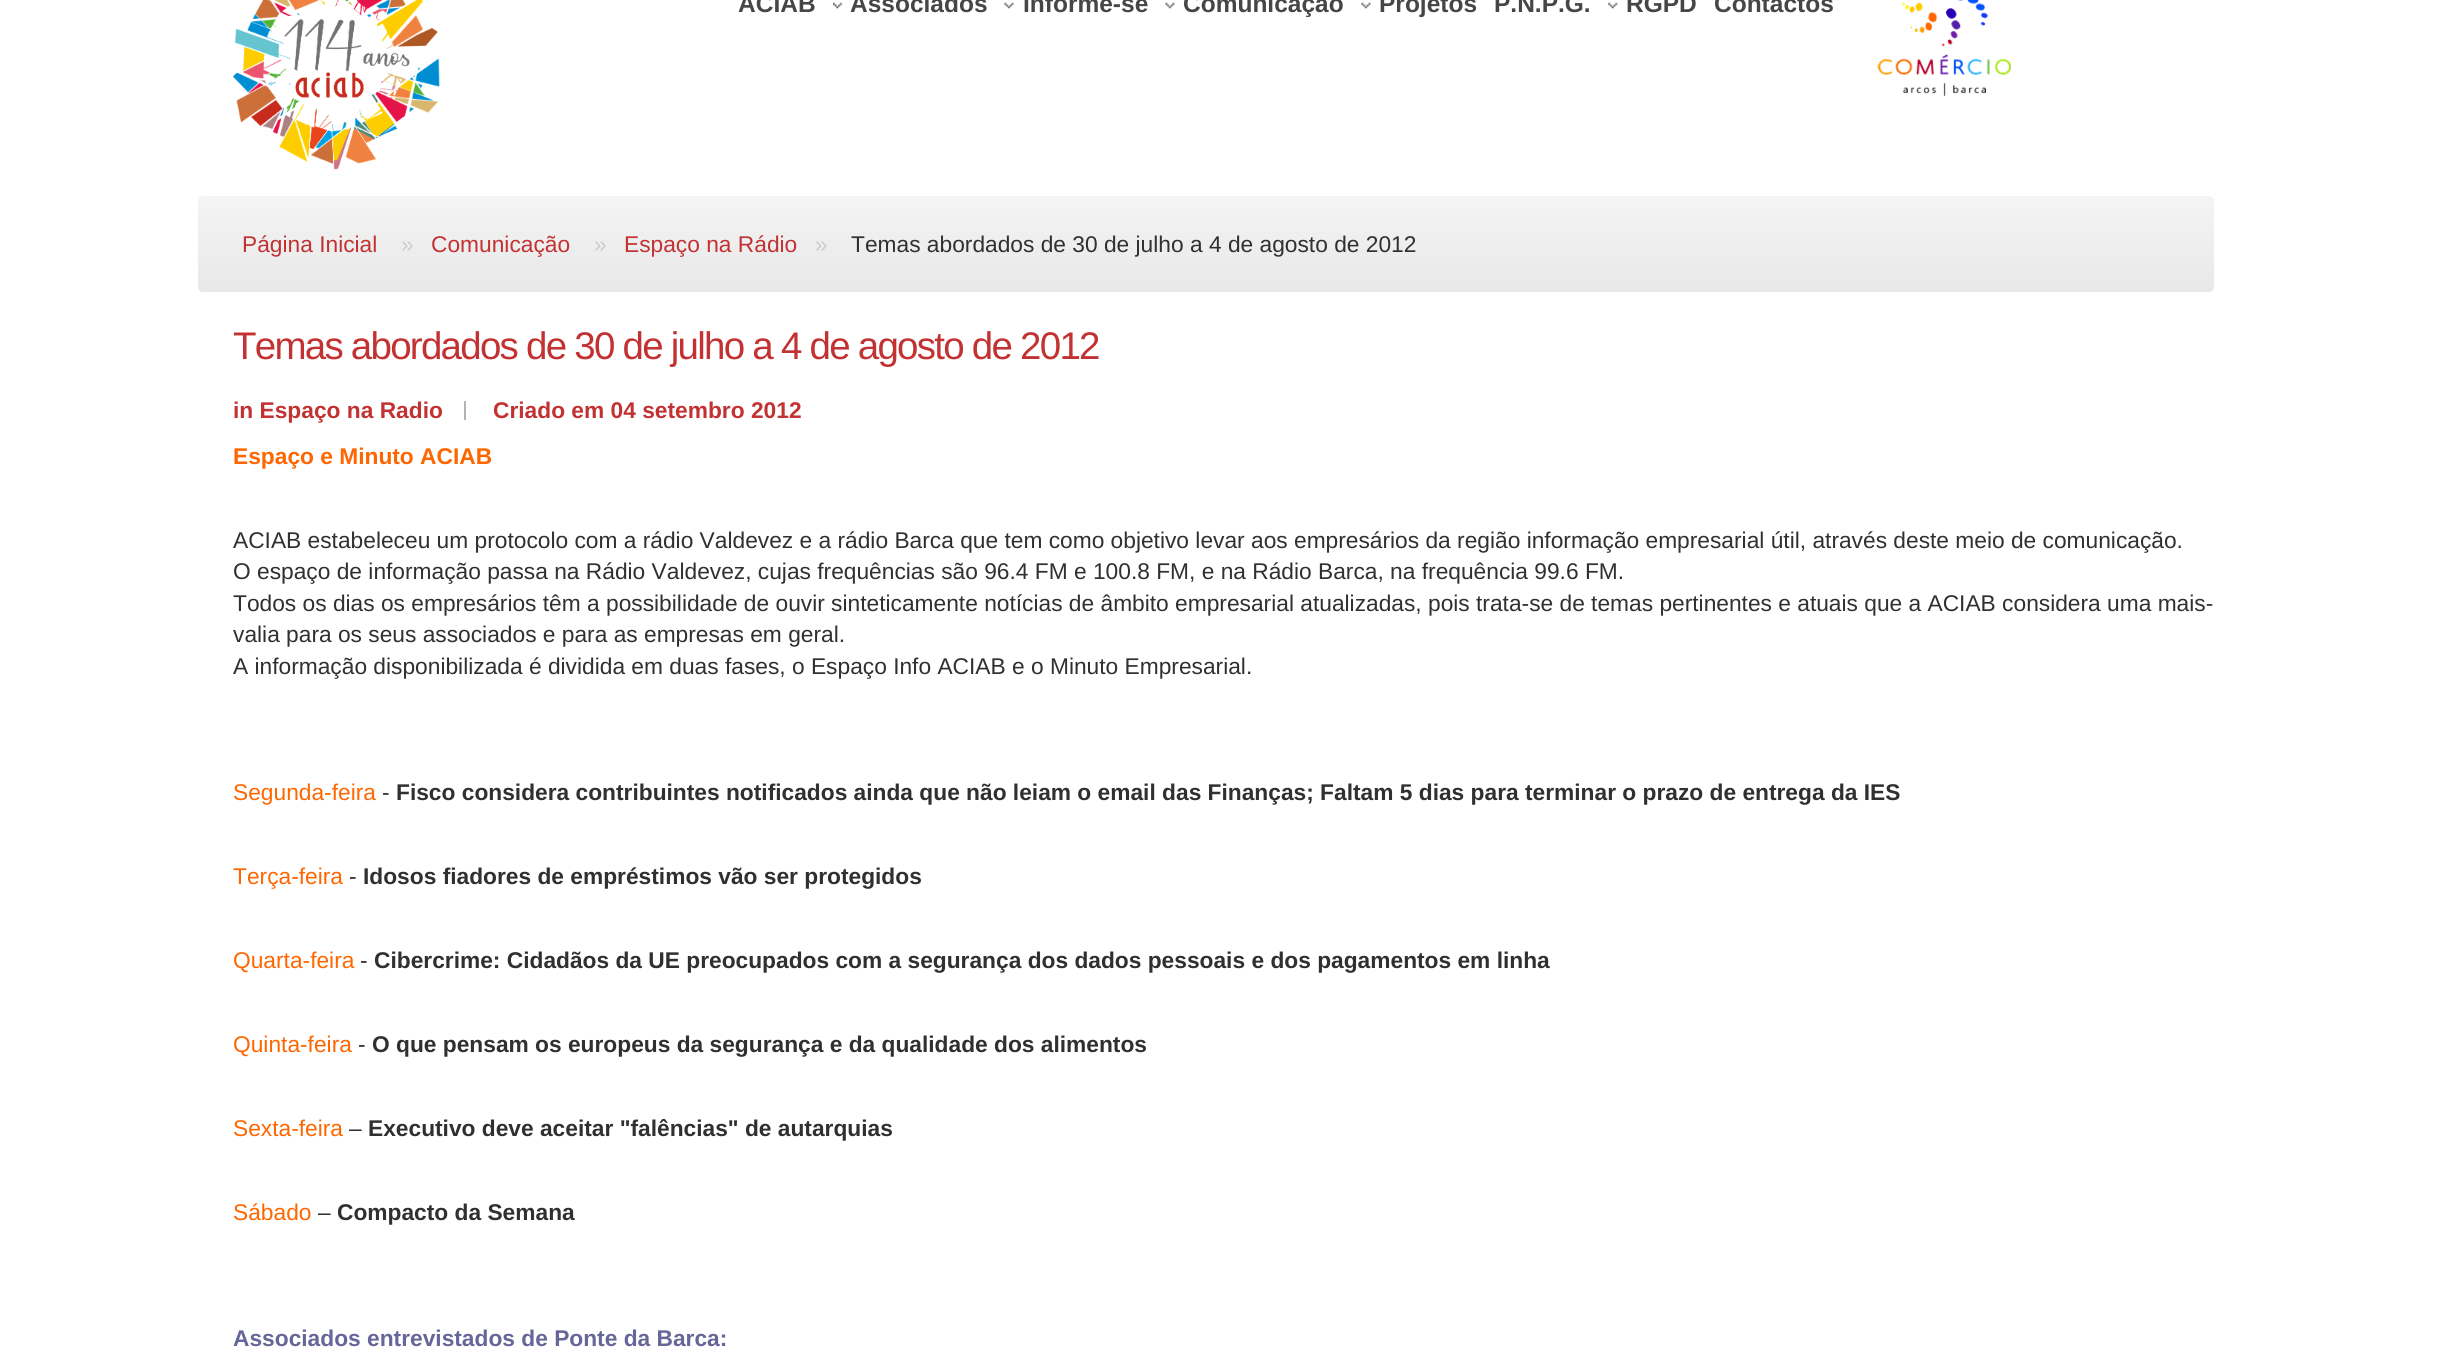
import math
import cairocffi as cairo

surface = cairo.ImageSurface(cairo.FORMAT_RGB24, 2445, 1366)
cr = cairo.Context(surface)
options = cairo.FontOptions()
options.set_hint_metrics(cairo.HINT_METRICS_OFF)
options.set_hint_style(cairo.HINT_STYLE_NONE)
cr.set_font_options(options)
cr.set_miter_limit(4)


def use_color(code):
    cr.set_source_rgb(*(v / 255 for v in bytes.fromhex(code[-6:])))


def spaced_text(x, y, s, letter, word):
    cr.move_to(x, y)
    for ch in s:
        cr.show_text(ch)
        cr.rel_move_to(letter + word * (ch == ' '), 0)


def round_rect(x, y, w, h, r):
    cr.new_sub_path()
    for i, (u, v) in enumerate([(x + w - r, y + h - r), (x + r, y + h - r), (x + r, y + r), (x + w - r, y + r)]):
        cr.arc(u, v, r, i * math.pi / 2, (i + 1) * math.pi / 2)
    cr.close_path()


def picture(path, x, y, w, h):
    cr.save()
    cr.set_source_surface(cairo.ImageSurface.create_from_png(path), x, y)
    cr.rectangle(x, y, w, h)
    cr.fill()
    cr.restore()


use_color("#ffffff")
cr.paint()
picture("img1.png", 232, 0, 208, 170)
cr.select_font_face("Liberation Sans", cairo.FONT_SLANT_NORMAL, cairo.FONT_WEIGHT_BOLD)
cr.set_font_size(24.5)
use_color("#464646")
cr.move_to(738, 12)
cr.show_text("ACIAB")
picture("img2.png", 833, 2, 10, 7)
cr.move_to(850, 12)
cr.show_text("Associados")
picture("img3.png", 1004, 2, 10, 7)
cr.move_to(1023, 12)
cr.show_text("Informe-se")
picture("img4.png", 1165, 2, 10, 7)
cr.move_to(1183, 12)
cr.show_text("Comunicação")
picture("img3.png", 1361, 2, 10, 7)
cr.move_to(1379, 12)
cr.show_text("Projetos")
cr.move_to(1494, 12)
cr.show_text("P.N.P.G.")
picture("img5.png", 1608, 2, 10, 7)
cr.move_to(1626, 12)
cr.show_text("RGPD")
cr.move_to(1714, 12)
cr.show_text("Contactos")
picture("img6.png", 1877, 0, 134, 96)
gradient = cairo.LinearGradient(1206, 196, 1206, 292)
gradient.add_color_stop_rgba(0, 0.957, 0.957, 0.957, 1)
gradient.add_color_stop_rgba(1, 0.91, 0.91, 0.91, 1)
cr.set_source(gradient)
round_rect(198, 196, 2016, 96, 5)
cr.fill()
cr.select_font_face("Liberation Sans")
cr.set_font_size(22.75)
use_color("#c33232")
cr.move_to(242, 252)
cr.show_text("Página Inicial")
use_color("#cccccc")
cr.move_to(401, 252)
cr.show_text("»")
use_color("#c33232")
cr.move_to(431, 252)
cr.show_text("Comunicação")
use_color("#cccccc")
cr.move_to(594, 252)
cr.show_text("»")
use_color("#c33232")
cr.move_to(624, 252)
cr.show_text("Espaço na Rádio")
use_color("#cccccc")
cr.move_to(815, 252)
cr.show_text("»")
use_color("#303030")
cr.move_to(851, 252)
cr.show_text("Temas abordados de 30 de julho a 4 de agosto de 2012")
cr.set_font_size(38.5)
use_color("#c33232")
spaced_text(233, 359, "Temas abordados de 30 de julho a 4 de agosto de 2012", -1.75, 0)
use_color("#b3b3b3")
cr.rectangle(464, 401, 2, 19)
cr.fill()
cr.select_font_face("Liberation Sans", cairo.FONT_SLANT_NORMAL, cairo.FONT_WEIGHT_BOLD)
cr.set_font_size(22.75)
use_color("#c33232")
cr.move_to(233, 418)
cr.show_text("in Espaço na Radio")
cr.move_to(493, 418)
cr.show_text("Criado em 04 setembro 2012")
use_color("#ff6600")
cr.move_to(233, 464)
cr.show_text("Espaço e Minuto ACIAB")
cr.select_font_face("Liberation Sans")
use_color("#303030")
cr.move_to(233, 548)
cr.show_text("ACIAB estabeleceu um protocolo com a rádio Valdevez e a rádio Barca que tem como objetivo levar aos empresários da região informação empresarial útil, através deste meio de comunicação.")
cr.move_to(233, 579)
cr.show_text("O espaço de informação passa na Rádio Valdevez, cujas frequências são 96.4 FM e 100.8 FM, e na Rádio Barca, na frequência 99.6 FM.")
cr.move_to(233, 611)
cr.show_text("Todos os dias os empresários têm a possibilidade de ouvir sinteticamente notícias de âmbito empresarial atualizadas, pois trata-se de temas pertinentes e atuais que a ACIAB considera uma mais-")
cr.move_to(233, 642)
cr.show_text("valia para os seus associados e para as empresas em geral.")
cr.move_to(233, 674)
cr.show_text("A informação disponibilizada é dividida em duas fases, o Espaço Info ACIAB e o Minuto Empresarial.")
use_color("#ff6600")
cr.move_to(233, 800)
cr.show_text("Segunda-feira")
use_color("#303030")
cr.move_to(382, 800)
cr.show_text("-")
cr.select_font_face("Liberation Sans", cairo.FONT_SLANT_NORMAL, cairo.FONT_WEIGHT_BOLD)
cr.move_to(396, 800)
cr.show_text("Fisco considera contribuintes notificados ainda que não leiam o email das Finanças; Faltam 5 dias para terminar o prazo de entrega da IES")
cr.select_font_face("Liberation Sans")
use_color("#ff6600")
cr.move_to(233, 884)
cr.show_text("Terça-feira")
use_color("#303030")
cr.move_to(349, 884)
cr.show_text("-")
cr.select_font_face("Liberation Sans", cairo.FONT_SLANT_NORMAL, cairo.FONT_WEIGHT_BOLD)
cr.move_to(363, 884)
cr.show_text("Idosos fiadores de empréstimos vão ser protegidos")
cr.select_font_face("Liberation Sans")
use_color("#ff6600")
cr.move_to(233, 968)
cr.show_text("Quarta-feira")
use_color("#303030")
cr.move_to(360, 968)
cr.show_text("-")
cr.select_font_face("Liberation Sans", cairo.FONT_SLANT_NORMAL, cairo.FONT_WEIGHT_BOLD)
cr.move_to(374, 968)
cr.show_text("Cibercrime: Cidadãos da UE preocupados com a segurança dos dados pessoais e dos pagamentos em linha")
cr.select_font_face("Liberation Sans")
use_color("#ff6600")
cr.move_to(233, 1052)
cr.show_text("Quinta-feira")
use_color("#303030")
cr.move_to(358, 1052)
cr.show_text("-")
cr.select_font_face("Liberation Sans", cairo.FONT_SLANT_NORMAL, cairo.FONT_WEIGHT_BOLD)
cr.move_to(372, 1052)
cr.show_text("O que pensam os europeus da segurança e da qualidade dos alimentos")
cr.select_font_face("Liberation Sans")
use_color("#ff6600")
cr.move_to(233, 1136)
cr.show_text("Sexta-feira")
use_color("#303030")
cr.move_to(349, 1136)
cr.show_text("–")
cr.select_font_face("Liberation Sans", cairo.FONT_SLANT_NORMAL, cairo.FONT_WEIGHT_BOLD)
cr.move_to(368, 1136)
cr.show_text("Executivo deve aceitar \"falências\" de autarquias")
cr.select_font_face("Liberation Sans")
use_color("#ff6600")
cr.move_to(233, 1220)
cr.show_text("Sábado")
use_color("#303030")
cr.move_to(318, 1220)
cr.show_text("–")
cr.select_font_face("Liberation Sans", cairo.FONT_SLANT_NORMAL, cairo.FONT_WEIGHT_BOLD)
cr.move_to(337, 1220)
cr.show_text("Compacto da Semana")
use_color("#666699")
cr.move_to(233, 1346)
cr.show_text("Associados entrevistados de Ponte da Barca:")
surface.write_to_png("result.png")
